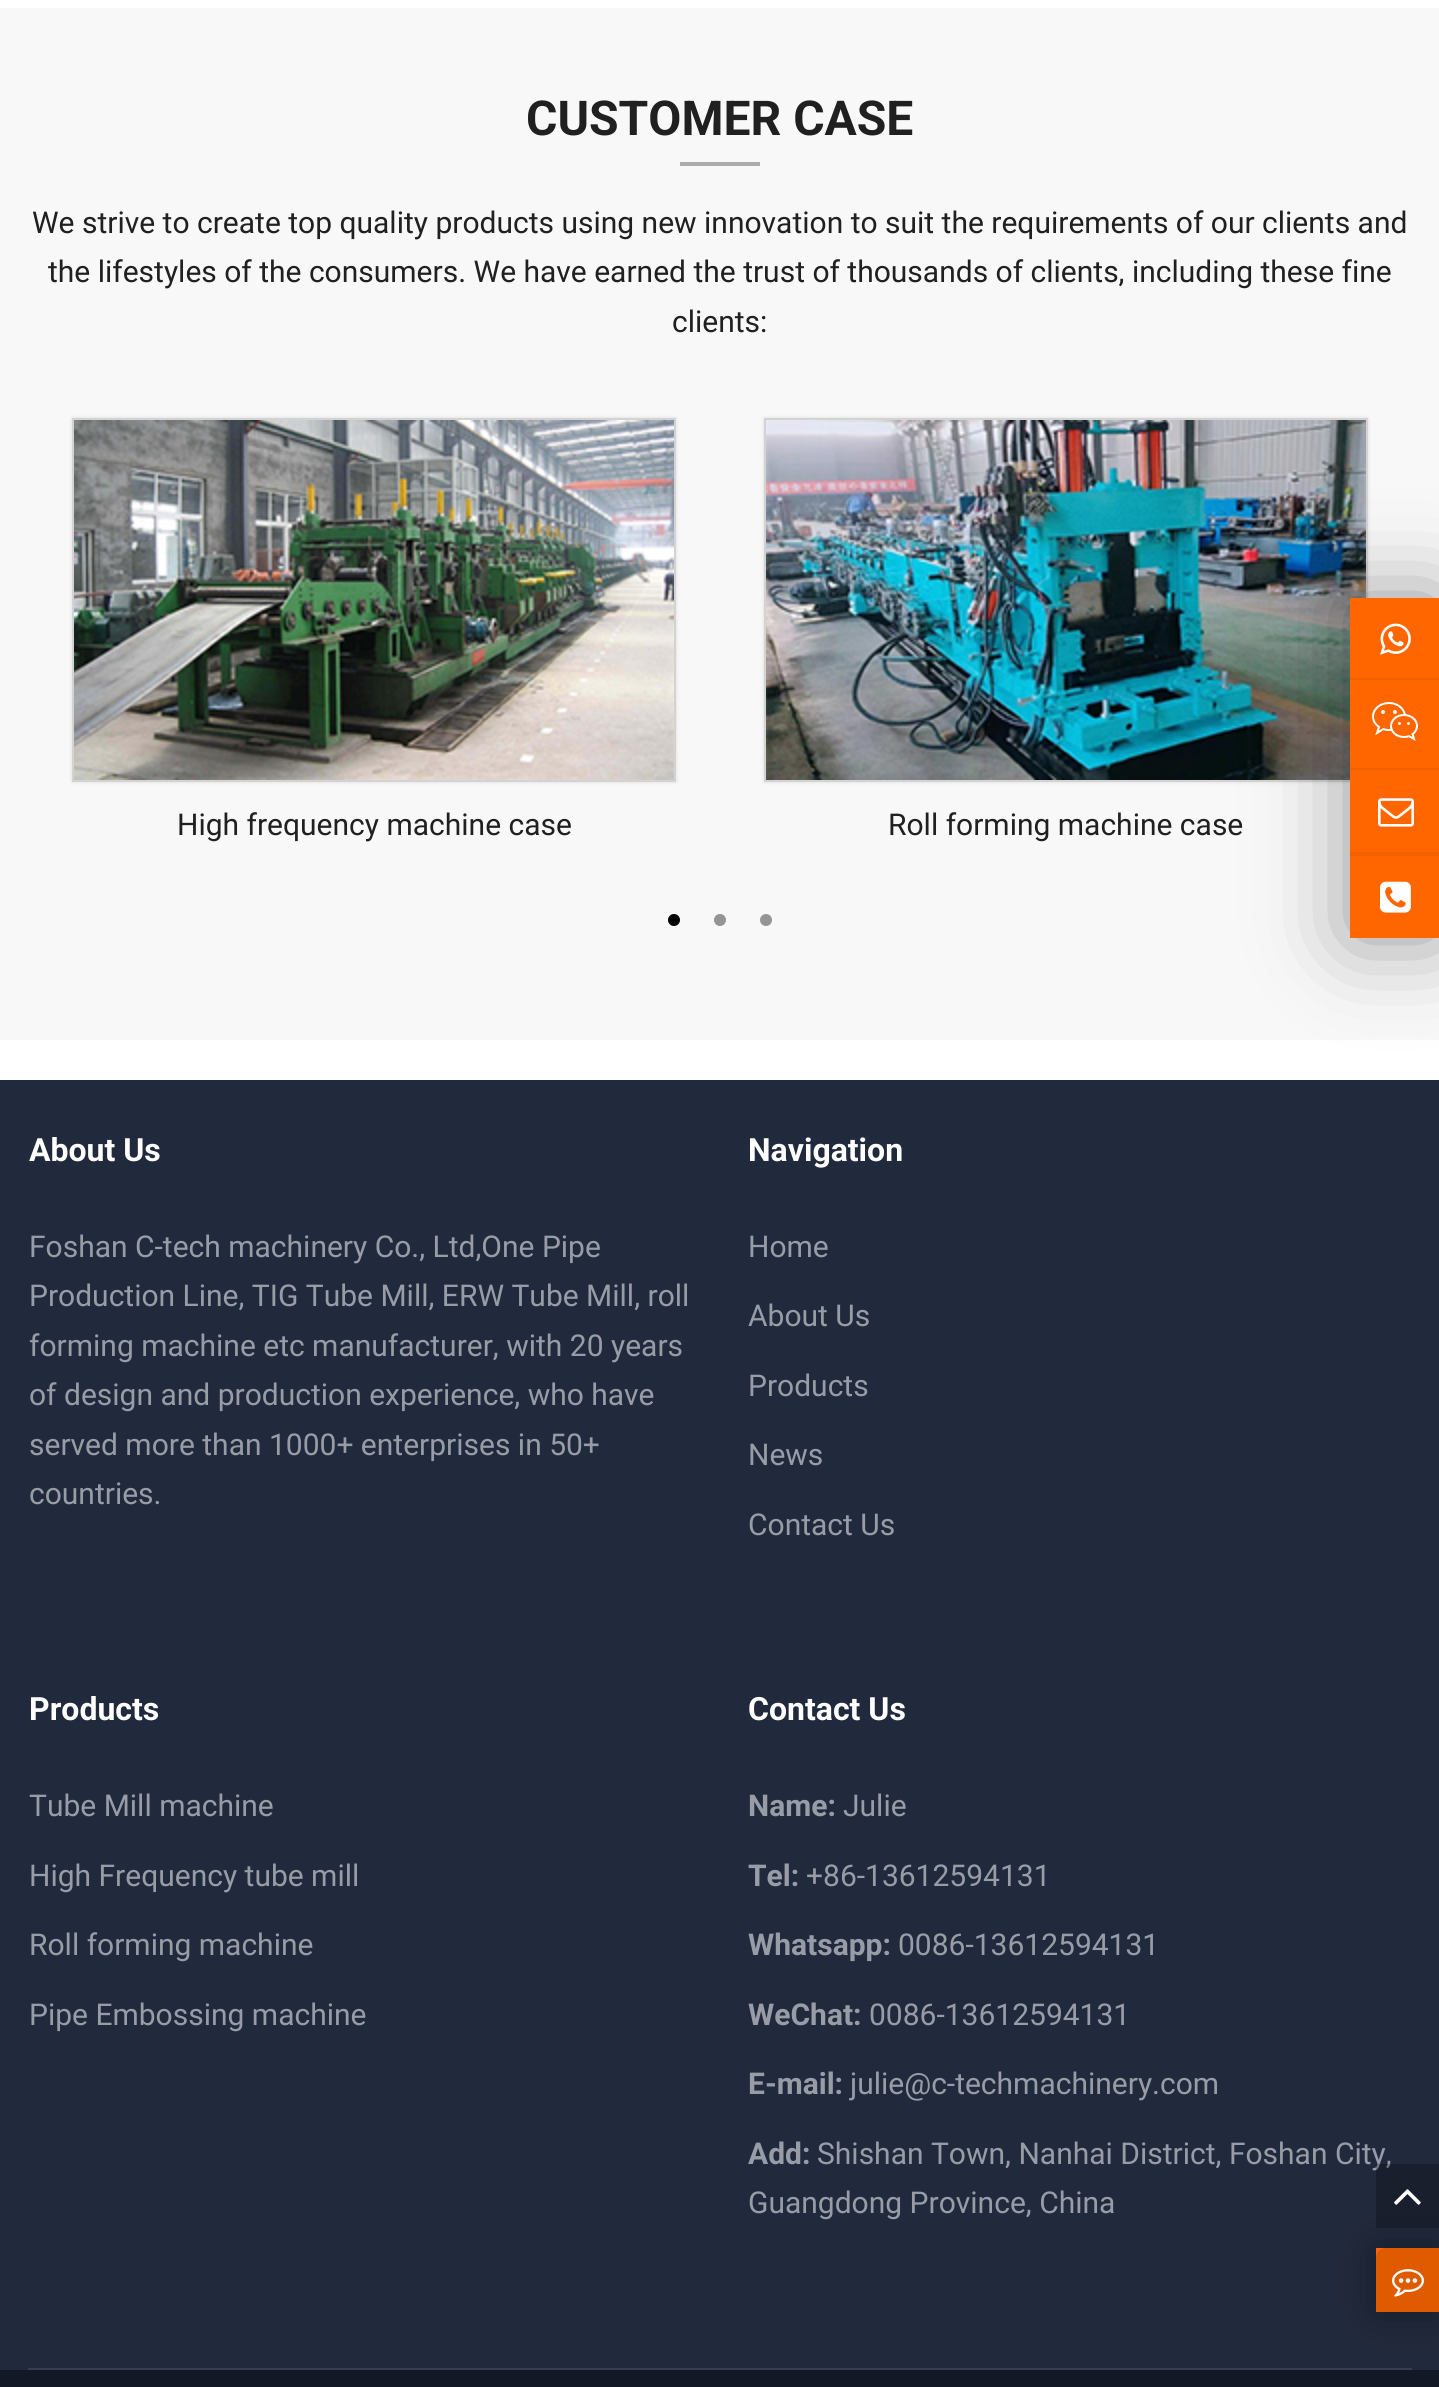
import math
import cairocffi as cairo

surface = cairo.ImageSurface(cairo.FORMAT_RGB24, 1439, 2387)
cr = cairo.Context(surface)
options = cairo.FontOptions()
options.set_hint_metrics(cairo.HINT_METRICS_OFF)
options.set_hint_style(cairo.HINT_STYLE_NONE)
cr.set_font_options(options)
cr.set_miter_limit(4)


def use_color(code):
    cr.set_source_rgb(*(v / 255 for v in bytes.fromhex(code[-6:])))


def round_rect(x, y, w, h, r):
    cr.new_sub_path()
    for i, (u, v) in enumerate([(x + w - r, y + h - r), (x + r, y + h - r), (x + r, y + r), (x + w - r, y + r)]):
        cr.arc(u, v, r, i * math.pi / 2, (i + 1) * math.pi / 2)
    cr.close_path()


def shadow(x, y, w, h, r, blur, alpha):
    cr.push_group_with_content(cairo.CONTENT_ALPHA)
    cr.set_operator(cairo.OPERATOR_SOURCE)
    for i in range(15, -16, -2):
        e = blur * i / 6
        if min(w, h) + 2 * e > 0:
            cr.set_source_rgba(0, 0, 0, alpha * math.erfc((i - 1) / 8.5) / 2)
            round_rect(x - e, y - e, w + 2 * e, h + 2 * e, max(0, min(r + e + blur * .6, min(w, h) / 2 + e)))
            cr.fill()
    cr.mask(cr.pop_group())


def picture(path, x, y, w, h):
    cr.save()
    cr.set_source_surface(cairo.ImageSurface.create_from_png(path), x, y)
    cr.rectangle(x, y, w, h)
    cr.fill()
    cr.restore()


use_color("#ffffff")
cr.paint()
use_color("#f8f8f8")
cr.rectangle(0, 8, 1439, 1032)
cr.fill()
cr.select_font_face("Roboto", cairo.FONT_SLANT_NORMAL, cairo.FONT_WEIGHT_BOLD)
cr.set_font_size(48)
use_color("#202020")
cr.move_to(526, 135)
cr.show_text("CUSTOMER CASE")
use_color("#acacac")
cr.rectangle(680, 162, 80, 4)
cr.fill()
cr.select_font_face("Roboto")
cr.set_font_size(30)
use_color("#202020")
cr.move_to(32, 233)
cr.show_text("We strive to create top quality products using new innovation to suit the requirements of our clients and")
cr.move_to(48, 282)
cr.show_text("the lifestyles of the consumers. We have earned the trust of thousands of clients, including these fine")
cr.move_to(672, 332)
cr.show_text("clients:")
use_color("#000000")
shadow(72, 418, 604, 364, 0, 2, 0.12)
cr.rectangle(73, 419, 602, 362)
use_color("#d3d3d3")
cr.stroke()
picture("img1.png", 74, 420, 600, 360)
use_color("#202020")
cr.move_to(177, 835)
cr.show_text("High frequency machine case")
use_color("#000000")
shadow(764, 418, 604, 364, 0, 2, 0.12)
cr.rectangle(765, 419, 602, 362)
use_color("#d3d3d3")
cr.stroke()
picture("img2.png", 766, 420, 600, 360)
use_color("#202020")
cr.move_to(888, 835)
cr.show_text("Roll forming machine case")
use_color("#000000")
cr.new_path()
cr.arc(674, 920, 6, 0, 2 * math.pi)
cr.fill()
use_color("#959595")
cr.arc(720, 920, 6, 0, 2 * math.pi)
cr.fill()
cr.arc(766, 920, 6, 0, 2 * math.pi)
cr.fill()
use_color("#000000")
shadow(1350, 598, 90, 340, 0, 45, 0.4)
use_color("#ff6600")
cr.rectangle(1350, 598, 89, 340)
cr.fill()
use_color("#f26100")
cr.rectangle(1350, 678, 89, 2)
cr.fill()
picture("img3.png", 1380, 623, 31, 32)
cr.rectangle(1350, 768, 89, 2)
cr.fill()
picture("img4.png", 1372, 702, 46, 39)
cr.rectangle(1350, 852, 89, 4)
cr.fill()
picture("img5.png", 1378, 798, 36, 29)
picture("img6.png", 1380, 881, 31, 32)
use_color("#21293c")
cr.rectangle(0, 1080, 1439, 1290)
cr.fill()
use_color("#373e50")
cr.rectangle(28, 2368, 1384, 2)
cr.fill()
cr.select_font_face("Roboto", cairo.FONT_SLANT_NORMAL, cairo.FONT_WEIGHT_BOLD)
cr.set_font_size(32)
use_color("#ffffff")
cr.move_to(29, 1161)
cr.show_text("About Us")
cr.select_font_face("Roboto")
cr.set_font_size(30)
use_color("#989ca7")
cr.move_to(29, 1257)
cr.show_text("Foshan C-tech machinery Co., Ltd,One Pipe")
cr.move_to(29, 1306)
cr.show_text("Production Line, TIG Tube Mill, ERW Tube Mill, roll")
cr.move_to(29, 1356)
cr.show_text("forming machine etc manufacturer, with 20 years")
cr.move_to(29, 1405)
cr.show_text("of design and production experience, who have")
cr.move_to(29, 1455)
cr.show_text("served more than 1000+ enterprises in 50+")
cr.move_to(29, 1504)
cr.show_text("countries.")
cr.select_font_face("Roboto", cairo.FONT_SLANT_NORMAL, cairo.FONT_WEIGHT_BOLD)
cr.set_font_size(32)
use_color("#ffffff")
cr.move_to(748, 1161)
cr.show_text("Navigation")
cr.select_font_face("Roboto")
cr.set_font_size(30)
use_color("#989ca7")
cr.move_to(748, 1257)
cr.show_text("Home")
cr.move_to(748, 1326)
cr.show_text("About Us")
cr.move_to(748, 1396)
cr.show_text("Products")
cr.move_to(748, 1465)
cr.show_text("News")
cr.move_to(748, 1535)
cr.show_text("Contact Us")
cr.select_font_face("Roboto", cairo.FONT_SLANT_NORMAL, cairo.FONT_WEIGHT_BOLD)
cr.set_font_size(32)
use_color("#ffffff")
cr.move_to(29, 1720)
cr.show_text("Products")
cr.select_font_face("Roboto")
cr.set_font_size(30)
use_color("#989ca7")
cr.move_to(29, 1816)
cr.show_text("Tube Mill machine")
cr.move_to(29, 1886)
cr.show_text("High Frequency tube mill")
cr.move_to(29, 1955)
cr.show_text("Roll forming machine")
cr.move_to(29, 2025)
cr.show_text("Pipe Embossing machine")
cr.select_font_face("Roboto", cairo.FONT_SLANT_NORMAL, cairo.FONT_WEIGHT_BOLD)
cr.set_font_size(32)
use_color("#ffffff")
cr.move_to(748, 1720)
cr.show_text("Contact Us")
cr.set_font_size(30)
use_color("#989ca7")
cr.move_to(748, 1816)
cr.show_text("Name:")
cr.select_font_face("Roboto")
cr.move_to(843, 1816)
cr.show_text("Julie")
cr.select_font_face("Roboto", cairo.FONT_SLANT_NORMAL, cairo.FONT_WEIGHT_BOLD)
cr.move_to(748, 1886)
cr.show_text("Tel:")
cr.select_font_face("Roboto")
cr.move_to(806, 1886)
cr.show_text("+86-13612594131")
cr.select_font_face("Roboto", cairo.FONT_SLANT_NORMAL, cairo.FONT_WEIGHT_BOLD)
cr.move_to(748, 1955)
cr.show_text("Whatsapp:")
cr.select_font_face("Roboto")
cr.move_to(898, 1955)
cr.show_text("0086-13612594131")
cr.select_font_face("Roboto", cairo.FONT_SLANT_NORMAL, cairo.FONT_WEIGHT_BOLD)
cr.move_to(748, 2025)
cr.show_text("WeChat:")
cr.select_font_face("Roboto")
cr.move_to(869, 2025)
cr.show_text("0086-13612594131")
cr.select_font_face("Roboto", cairo.FONT_SLANT_NORMAL, cairo.FONT_WEIGHT_BOLD)
cr.move_to(748, 2094)
cr.show_text("E-mail:")
cr.select_font_face("Roboto")
cr.move_to(850, 2094)
cr.show_text("julie@c-techmachinery.com")
cr.select_font_face("Roboto", cairo.FONT_SLANT_NORMAL, cairo.FONT_WEIGHT_BOLD)
cr.move_to(748, 2164)
cr.show_text("Add:")
cr.select_font_face("Roboto")
cr.move_to(817, 2164)
cr.show_text("Shishan Town, Nanhai District, Foshan City,")
cr.move_to(748, 2213)
cr.show_text("Guangdong Province, China")
use_color("#131826")
cr.rectangle(0, 2370, 1439, 17)
cr.fill()
cr.set_source_rgba(0, 0, 0, 0.25)
cr.rectangle(1376, 2164, 63, 64)
cr.fill()
picture("img7.png", 1394, 2189, 27, 16)
use_color("#000000")
shadow(1376, 2248, 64, 64, 0, 21, 0.3)
use_color("#ff6600")
cr.rectangle(1376, 2248, 10, 10)
cr.fill()
use_color("#e05a00")
cr.new_path()
cr.move_to(1386, 2248)
cr.line_to(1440, 2248)
cr.line_to(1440, 2312)
cr.line_to(1376, 2312)
cr.line_to(1376, 2258)
cr.curve_to(1376, 2252.5, 1380.5, 2248, 1386, 2248)
cr.close_path()
cr.fill()
picture("img8.png", 1392, 2269, 32, 28)
surface.write_to_png("result.png")
